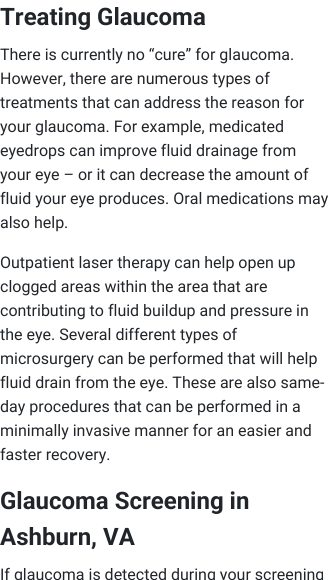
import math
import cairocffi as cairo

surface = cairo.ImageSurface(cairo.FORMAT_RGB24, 330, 580)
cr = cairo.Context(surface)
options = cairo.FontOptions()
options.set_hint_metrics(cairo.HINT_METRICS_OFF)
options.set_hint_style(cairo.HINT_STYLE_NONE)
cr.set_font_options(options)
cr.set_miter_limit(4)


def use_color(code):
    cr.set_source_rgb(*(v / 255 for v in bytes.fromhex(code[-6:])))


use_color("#ffffff")
cr.paint()
cr.select_font_face("Roboto", cairo.FONT_SLANT_NORMAL, cairo.FONT_WEIGHT_BOLD)
cr.set_font_size(24)
use_color("#212529")
cr.move_to(0, 25)
cr.show_text("Treating Glaucoma")
cr.select_font_face("Roboto")
cr.set_font_size(16)
cr.move_to(0, 60)
cr.show_text("There is currently no “cure” for glaucoma.")
cr.move_to(0, 84)
cr.show_text("However, there are numerous types of")
cr.move_to(0, 108)
cr.show_text("treatments that can address the reason for")
cr.move_to(0, 132)
cr.show_text("your glaucoma. For example, medicated")
cr.move_to(0, 156)
cr.show_text("eyedrops can improve fluid drainage from")
cr.move_to(0, 180)
cr.show_text("your eye – or it can decrease the amount of")
cr.move_to(0, 204)
cr.show_text("fluid your eye produces. Oral medications may")
cr.move_to(0, 228)
cr.show_text("also help.")
cr.move_to(0, 268)
cr.show_text("Outpatient laser therapy can help open up")
cr.move_to(0, 292)
cr.show_text("clogged areas within the area that are")
cr.move_to(0, 316)
cr.show_text("contributing to fluid buildup and pressure in")
cr.move_to(0, 340)
cr.show_text("the eye. Several different types of")
cr.move_to(0, 364)
cr.show_text("microsurgery can be performed that will help")
cr.move_to(0, 388)
cr.show_text("fluid drain from the eye. These are also same-")
cr.move_to(0, 412)
cr.show_text("day procedures that can be performed in a")
cr.move_to(0, 436)
cr.show_text("minimally invasive manner for an easier and")
cr.move_to(0, 460)
cr.show_text("faster recovery.")
cr.select_font_face("Roboto", cairo.FONT_SLANT_NORMAL, cairo.FONT_WEIGHT_BOLD)
cr.set_font_size(24)
cr.move_to(0, 509)
cr.show_text("Glaucoma Screening in")
cr.move_to(0, 545)
cr.show_text("Ashburn, VA")
cr.select_font_face("Roboto")
cr.set_font_size(16)
cr.move_to(0, 580)
cr.show_text("If glaucoma is detected during your screening")
surface.write_to_png("result.png")
